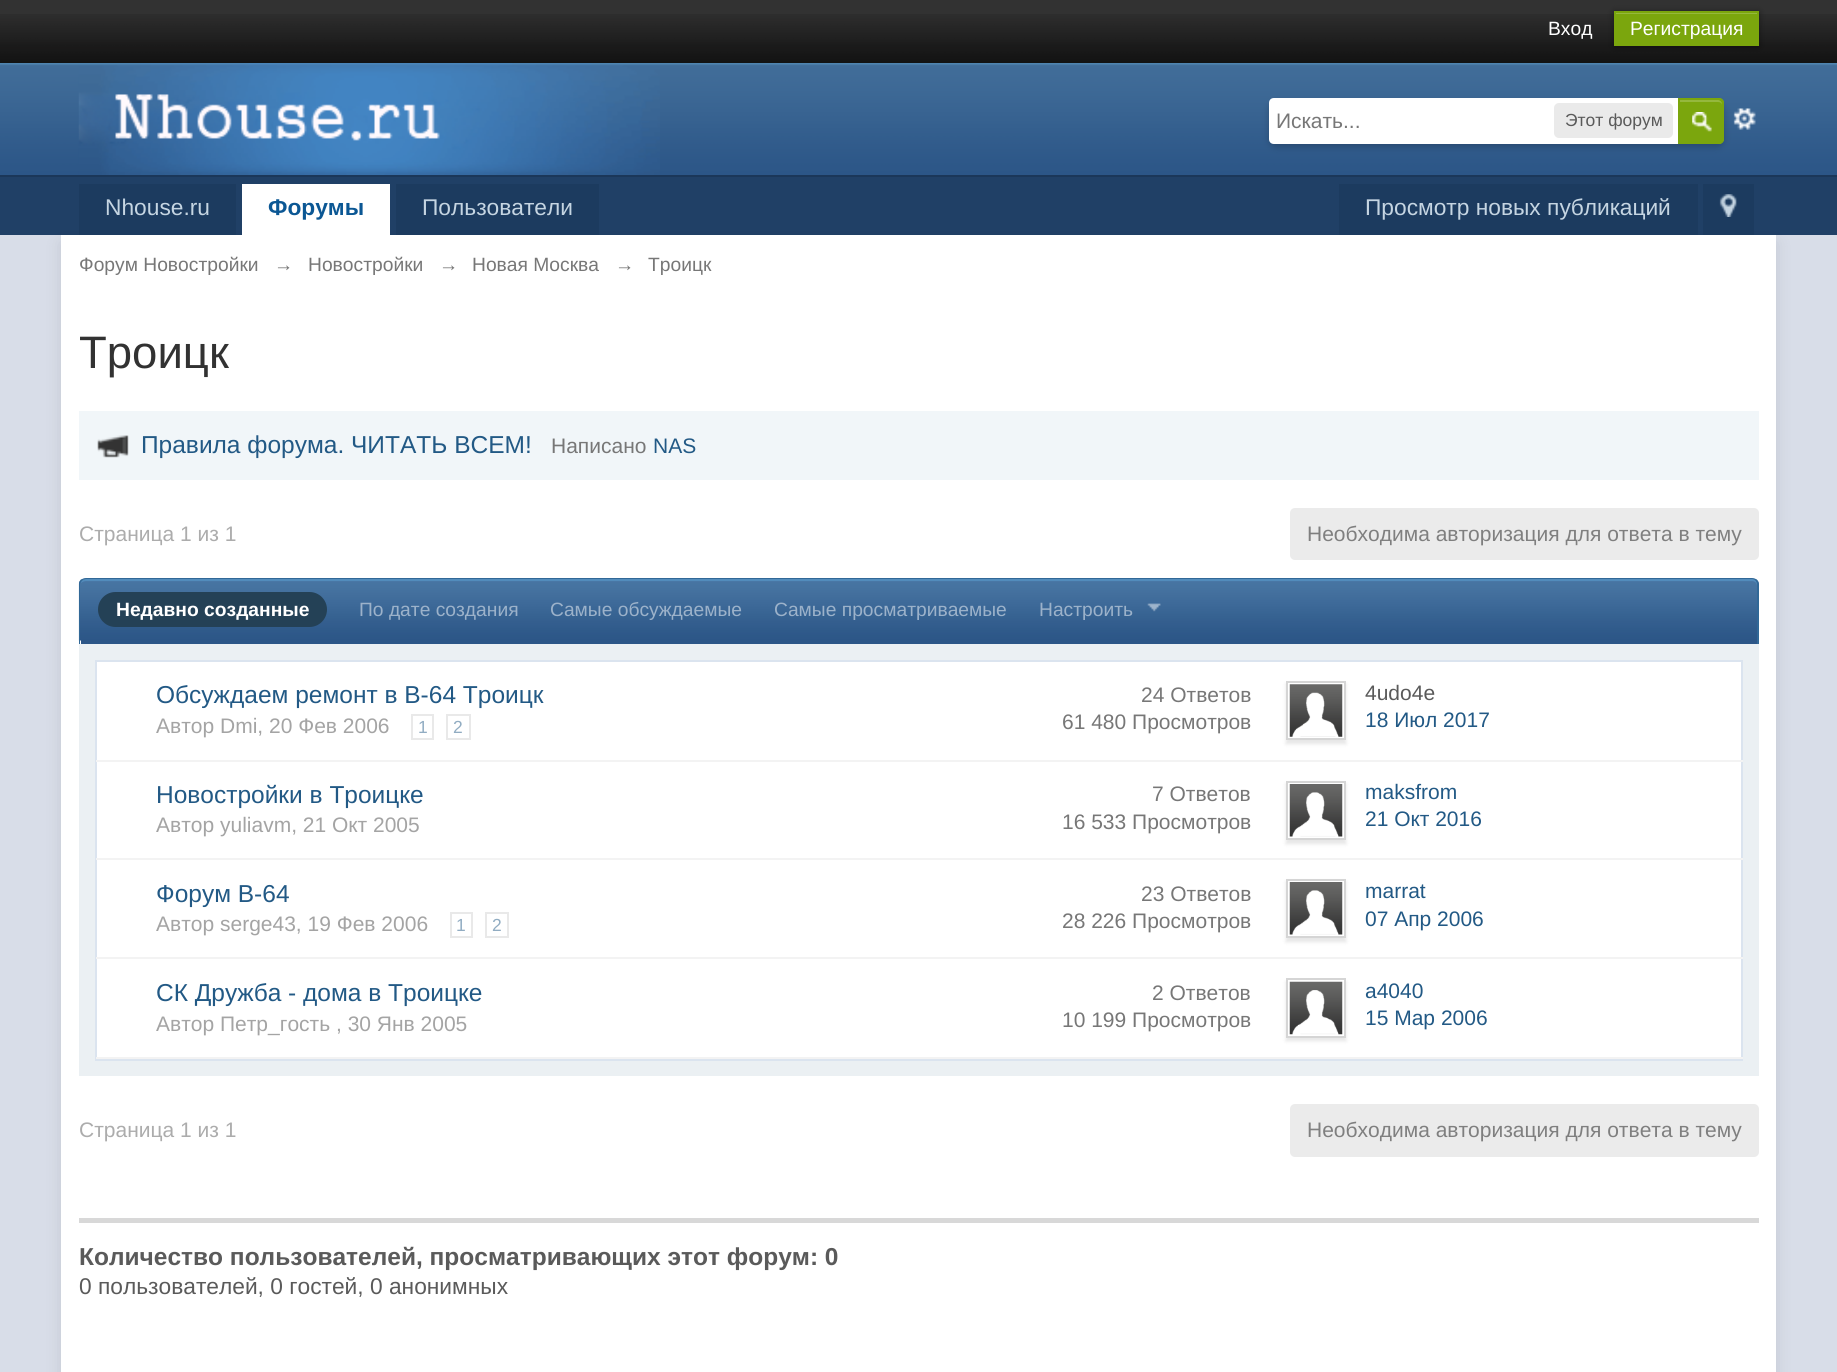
import math
import cairocffi as cairo

surface = cairo.ImageSurface(cairo.FORMAT_RGB24, 1837, 1372)
cr = cairo.Context(surface)
options = cairo.FontOptions()
options.set_hint_metrics(cairo.HINT_METRICS_OFF)
options.set_hint_style(cairo.HINT_STYLE_NONE)
cr.set_font_options(options)
cr.set_miter_limit(4)


def use_color(code):
    cr.set_source_rgb(*(v / 255 for v in bytes.fromhex(code[-6:])))


def round_rect(x, y, w, h, r):
    cr.new_sub_path()
    for i, (u, v) in enumerate([(x + w - r, y + h - r), (x + r, y + h - r), (x + r, y + r), (x + w - r, y + r)]):
        cr.arc(u, v, r, i * math.pi / 2, (i + 1) * math.pi / 2)
    cr.close_path()


def shadow(x, y, w, h, r, blur, alpha):
    cr.push_group_with_content(cairo.CONTENT_ALPHA)
    cr.set_operator(cairo.OPERATOR_SOURCE)
    for i in range(15, -16, -2):
        e = blur * i / 6
        if min(w, h) + 2 * e > 0:
            cr.set_source_rgba(0, 0, 0, alpha * math.erfc((i - 1) / 8.5) / 2)
            round_rect(x - e, y - e, w + 2 * e, h + 2 * e, max(0, min(r + e + blur * .6, min(w, h) / 2 + e)))
            cr.fill()
    cr.mask(cr.pop_group())


def picture(path, x, y, w, h):
    cr.save()
    cr.set_source_surface(cairo.ImageSurface.create_from_png(path), x, y)
    cr.rectangle(x, y, w, h)
    cr.fill()
    cr.restore()


use_color("#d8dde8")
cr.paint()
use_color("#323232")
cr.rectangle(0, 0, 1837, 14)
cr.fill()
picture("img1.png", 0, 14, 1837, 49)
cr.select_font_face("Liberation Sans")
cr.set_font_size(19.25)
use_color("#ffffff")
cr.move_to(1548, 35)
cr.show_text("Вход")
use_color("#000000")
shadow(1614, 12, 145, 35, 0, 3.5, 0.4)
use_color("#7ba60d")
cr.rectangle(1616, 14, 141, 30)
cr.fill()
use_color("#95b83d")
cr.rectangle(1615, 13, 142, 1)
cr.fill()
cr.rectangle(1615, 12, 143, 33)
use_color("#7ba60d")
cr.stroke()
use_color("#ffffff")
cr.move_to(1630, 35)
cr.show_text("Регистрация")
picture("img2.png", 0, 63, 1837, 112)
use_color("#1b3759")
cr.rectangle(0, 175, 1837, 2)
cr.fill()
picture("img3.png", 78, 63, 582, 112)
picture("img5.png", 1733, 108, 23, 22)
use_color("#000000")
shadow(1269, 102, 455, 45, 7, 3.5, 0.2)
use_color("#ffffff")
cr.new_path()
cr.move_to(1274, 98)
cr.line_to(1717, 98)
cr.curve_to(1721, 98, 1724, 101, 1724, 105)
cr.line_to(1724, 137)
cr.curve_to(1724, 141, 1721, 144, 1717, 144)
cr.line_to(1274, 144)
cr.curve_to(1271, 144, 1269, 142, 1269, 139)
cr.line_to(1269, 103)
cr.curve_to(1269, 100, 1271, 98, 1274, 98)
cr.close_path()
cr.fill()
cr.set_font_size(21)
use_color("#777777")
cr.move_to(1276, 128)
cr.show_text("Искать...")
use_color("#eaeaea")
round_rect(1554, 103, 119, 35, 5)
cr.fill()
cr.set_font_size(17.5)
use_color("#5a5a5a")
cr.move_to(1565, 126)
cr.show_text("Этот форум")
use_color("#7ba60d")
cr.new_path()
cr.move_to(1678, 98)
cr.line_to(1719, 98)
cr.curve_to(1722, 98, 1724, 100, 1724, 103)
cr.line_to(1724, 139)
cr.curve_to(1724, 142, 1722, 144, 1719, 144)
cr.line_to(1678, 144)
cr.close_path()
cr.fill()
picture("img4.png", 1692, 112, 20, 20)
use_color("#95b83d")
cr.new_path()
cr.move_to(1680, 102)
cr.line_to(1718, 102)
cr.curve_to(1720, 102, 1722, 103, 1722, 105)
cr.line_to(1722, 104)
cr.curve_to(1722, 102, 1720, 100, 1718, 100)
cr.line_to(1680, 100)
cr.close_path()
cr.fill()
cr.new_path()
cr.move_to(1679, 99)
cr.line_to(1719, 99)
cr.curve_to(1721, 99, 1723, 101, 1723, 103)
cr.line_to(1723, 139)
cr.curve_to(1723, 141, 1721, 143, 1719, 143)
cr.line_to(1679, 143)
cr.close_path()
use_color("#7ba60d")
cr.stroke()
use_color("#204066")
cr.rectangle(0, 177, 1837, 58)
cr.fill()
use_color("#000000")
shadow(61, 243, 1715, 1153, 0, 8, 0.1)
use_color("#1c3b5f")
cr.rectangle(79, 184, 157, 51)
cr.fill()
cr.set_font_size(22.75)
use_color("#c5d5e2")
cr.move_to(105, 215)
cr.show_text("Nhouse.ru")
use_color("#ffffff")
cr.rectangle(242, 184, 148, 51)
cr.fill()
cr.select_font_face("Liberation Sans", cairo.FONT_SLANT_NORMAL, cairo.FONT_WEIGHT_BOLD)
use_color("#0b5794")
cr.move_to(268, 215)
cr.show_text("Форумы")
use_color("#1c3b5f")
cr.rectangle(396, 184, 203, 51)
cr.fill()
cr.select_font_face("Liberation Sans")
use_color("#c5d5e2")
cr.move_to(422, 215)
cr.show_text("Пользователи")
use_color("#1c3b5f")
cr.rectangle(1339, 184, 359, 51)
cr.fill()
use_color("#c5d5e2")
cr.move_to(1365, 215)
cr.show_text("Просмотр новых публикаций")
use_color("#1c3b5f")
cr.rectangle(1703, 184, 51, 51)
cr.fill()
picture("img6.png", 1719, 194, 18, 23)
use_color("#ffffff")
cr.rectangle(61, 235, 1715, 1137)
cr.fill()
cr.set_font_size(19.25)
use_color("#777777")
cr.move_to(79, 271)
cr.show_text("Форум Новостройки")
cr.move_to(274, 271)
cr.show_text("→")
cr.move_to(308, 271)
cr.show_text("Новостройки")
cr.move_to(439, 271)
cr.show_text("→")
cr.move_to(472, 271)
cr.show_text("Новая Москва")
cr.move_to(615, 271)
cr.show_text("→")
cr.move_to(648, 271)
cr.show_text("Троицк")
cr.set_font_size(45.5)
use_color("#323232")
cr.move_to(79, 368)
cr.show_text("Троицк")
use_color("#f1f6f9")
cr.rectangle(79, 411, 1680, 69)
cr.fill()
picture("img7.png", 97, 435, 32, 23)
cr.set_font_size(24.5)
use_color("#225985")
cr.move_to(141, 453)
cr.show_text("Правила форума. ЧИТАТЬ ВСЕМ!")
cr.set_font_size(21)
use_color("#777777")
cr.move_to(551, 453)
cr.show_text("Написано")
use_color("#225985")
cr.move_to(653, 453)
cr.show_text("NAS")
use_color("#acacac")
cr.move_to(79, 541)
cr.show_text("Страница 1 из 1")
use_color("#ebebeb")
round_rect(1290, 508, 469, 52, 5)
cr.fill()
use_color("#7f7f7f")
cr.move_to(1307, 541)
cr.show_text("Необходима авторизация для ответа в тему")
use_color("#2c5687")
cr.new_path()
cr.move_to(86, 579)
cr.line_to(1752, 579)
cr.curve_to(1755, 579, 1757, 581, 1757, 584)
cr.line_to(1757, 644)
cr.line_to(81, 644)
cr.line_to(81, 584)
cr.curve_to(81, 581, 83, 579, 86, 579)
cr.close_path()
cr.fill()
picture("img8.png", 78, 579, 1681, 62)
use_color("#528cbc")
cr.new_path()
cr.move_to(86, 581)
cr.line_to(1752, 581)
cr.curve_to(1755, 581, 1757, 583, 1757, 586)
cr.line_to(1757, 584)
cr.curve_to(1757, 581, 1755, 579, 1752, 579)
cr.line_to(86, 579)
cr.curve_to(84, 579, 81, 581, 81, 583)
cr.curve_to(82, 582, 84, 581, 86, 581)
cr.close_path()
cr.fill()
use_color("#316897")
cr.set_fill_rule(cairo.FILL_RULE_EVEN_ODD)
cr.new_path()
cr.move_to(86, 578)
cr.line_to(1752, 578)
cr.curve_to(1756, 578, 1759, 581, 1759, 584)
cr.line_to(1759, 644)
cr.line_to(79, 644)
cr.line_to(79, 584)
cr.curve_to(79, 581, 82, 578, 86, 578)
cr.close_path()
cr.move_to(86, 579)
cr.line_to(1752, 579)
cr.curve_to(1755, 579, 1757, 582, 1757, 584)
cr.line_to(1757, 644)
cr.line_to(80, 644)
cr.line_to(80, 584)
cr.curve_to(80, 582, 83, 579, 86, 579)
cr.close_path()
cr.fill()
use_color("#244156")
round_rect(98, 592, 229, 35, 17.5)
cr.fill()
cr.select_font_face("Liberation Sans", cairo.FONT_SLANT_NORMAL, cairo.FONT_WEIGHT_BOLD)
cr.set_font_size(19.25)
use_color("#ffffff")
cr.move_to(116, 616)
cr.show_text("Недавно созданные")
cr.select_font_face("Liberation Sans")
use_color("#9cb2ca")
cr.move_to(359, 616)
cr.show_text("По дате создания")
cr.move_to(550, 616)
cr.show_text("Самые обсуждаемые")
cr.move_to(774, 616)
cr.show_text("Самые просматриваемые")
cr.move_to(1039, 616)
cr.show_text("Настроить")
picture("img9.png", 1147, 603, 14, 9)
use_color("#ebf0f3")
cr.rectangle(79, 644, 1680, 432)
cr.fill()
use_color("#ffffff")
cr.rectangle(97, 662, 1644, 395)
cr.fill()
cr.rectangle(96, 661, 1646, 399)
use_color("#dbe4ef")
cr.stroke()
cr.set_font_size(24.5)
use_color("#225985")
cr.move_to(156, 703)
cr.show_text("Обсуждаем ремонт в В-64 Троицк")
cr.set_font_size(21)
use_color("#a4a4a4")
cr.move_to(156, 733)
cr.show_text("Автор Dmi, 20 Фев 2006")
cr.rectangle(412, 715, 21, 24)
use_color("#e9e9e9")
cr.stroke()
cr.set_font_size(17.5)
use_color("#91acc2")
cr.move_to(418, 733)
cr.show_text("1")
cr.rectangle(447, 715, 23, 24)
use_color("#e9e9e9")
cr.stroke()
use_color("#91acc2")
cr.move_to(453, 733)
cr.show_text("2")
cr.set_font_size(21)
use_color("#777777")
cr.move_to(1141, 702)
cr.show_text("24 Ответов")
cr.move_to(1062, 729)
cr.show_text("61 480 Просмотров")
use_color("#f3f3f3")
cr.rectangle(96, 760, 1647, 2)
cr.fill()
use_color("#000000")
shadow(1286, 684, 60, 60, 0, 2, 0.1)
use_color("#ffffff")
cr.rectangle(1287, 682, 58, 57)
cr.fill_preserve()
use_color("#d5d5d5")
cr.stroke()
picture("img10.png", 1289, 684, 54, 53)
use_color("#5a5a5a")
cr.move_to(1365, 700)
cr.show_text("4udo4e")
use_color("#225985")
cr.move_to(1365, 727)
cr.show_text("18 Июл 2017")
cr.set_font_size(24.5)
cr.move_to(156, 803)
cr.show_text("Новостройки в Троицке")
cr.set_font_size(21)
use_color("#a4a4a4")
cr.move_to(156, 832)
cr.show_text("Автор yuliavm, 21 Окт 2005")
use_color("#777777")
cr.move_to(1152, 801)
cr.show_text("7 Ответов")
cr.move_to(1062, 829)
cr.show_text("16 533 Просмотров")
use_color("#f3f3f3")
cr.rectangle(96, 858, 1647, 2)
cr.fill()
use_color("#000000")
shadow(1286, 784, 60, 60, 0, 2, 0.1)
use_color("#ffffff")
cr.rectangle(1287, 782, 58, 57)
cr.fill_preserve()
use_color("#d5d5d5")
cr.stroke()
picture("img11.png", 1289, 784, 54, 53)
use_color("#225985")
cr.move_to(1365, 799)
cr.show_text("maksfrom")
cr.move_to(1365, 826)
cr.show_text("21 Окт 2016")
cr.set_font_size(24.5)
cr.move_to(156, 902)
cr.show_text("Форум В-64")
cr.set_font_size(21)
use_color("#a4a4a4")
cr.move_to(156, 931)
cr.show_text("Автор serge43, 19 Фев 2006")
cr.rectangle(451, 913, 21, 24)
use_color("#e9e9e9")
cr.stroke()
cr.set_font_size(17.5)
use_color("#91acc2")
cr.move_to(456, 931)
cr.show_text("1")
cr.rectangle(486, 913, 22, 24)
use_color("#e9e9e9")
cr.stroke()
use_color("#91acc2")
cr.move_to(492, 931)
cr.show_text("2")
cr.set_font_size(21)
use_color("#777777")
cr.move_to(1141, 901)
cr.show_text("23 Ответов")
cr.move_to(1062, 928)
cr.show_text("28 226 Просмотров")
use_color("#f3f3f3")
cr.rectangle(96, 957, 1647, 2)
cr.fill()
use_color("#000000")
shadow(1286, 882, 60, 60, 0, 2, 0.1)
use_color("#ffffff")
cr.rectangle(1287, 880, 58, 57)
cr.fill_preserve()
use_color("#d5d5d5")
cr.stroke()
picture("img11.png", 1289, 882, 54, 53)
use_color("#225985")
cr.move_to(1365, 898)
cr.show_text("marrat")
cr.move_to(1365, 926)
cr.show_text("07 Апр 2006")
cr.set_font_size(24.5)
cr.move_to(156, 1001)
cr.show_text("СК Дружба - дома в Троицке")
cr.set_font_size(21)
use_color("#a4a4a4")
cr.move_to(156, 1031)
cr.show_text("Автор Петр_гость , 30 Янв 2005")
use_color("#777777")
cr.move_to(1152, 1000)
cr.show_text("2 Ответов")
cr.move_to(1062, 1027)
cr.show_text("10 199 Просмотров")
use_color("#f3f3f3")
cr.rectangle(96, 1057, 1647, 2)
cr.fill()
use_color("#000000")
shadow(1286, 982, 60, 59, 0, 2, 0.1)
use_color("#ffffff")
cr.rectangle(1287, 979, 58, 58)
cr.fill_preserve()
use_color("#d5d5d5")
cr.stroke()
picture("img12.png", 1289, 981, 54, 54)
use_color("#225985")
cr.move_to(1365, 998)
cr.show_text("a4040")
cr.move_to(1365, 1025)
cr.show_text("15 Мар 2006")
use_color("#acacac")
cr.move_to(79, 1137)
cr.show_text("Страница 1 из 1")
use_color("#ebebeb")
round_rect(1290, 1104, 469, 53, 5)
cr.fill()
use_color("#7f7f7f")
cr.move_to(1307, 1137)
cr.show_text("Необходима авторизация для ответа в тему")
use_color("#d8d8d8")
cr.rectangle(79, 1218, 1680, 5)
cr.fill()
cr.select_font_face("Liberation Sans", cairo.FONT_SLANT_NORMAL, cairo.FONT_WEIGHT_BOLD)
cr.set_font_size(24.5)
use_color("#5a5a5a")
cr.move_to(79, 1265)
cr.show_text("Количество пользователей, просматривающих этот форум: 0")
cr.select_font_face("Liberation Sans")
cr.set_font_size(22.75)
cr.move_to(79, 1294)
cr.show_text("0 пользователей, 0 гостей, 0 анонимных")
surface.write_to_png("result.png")
